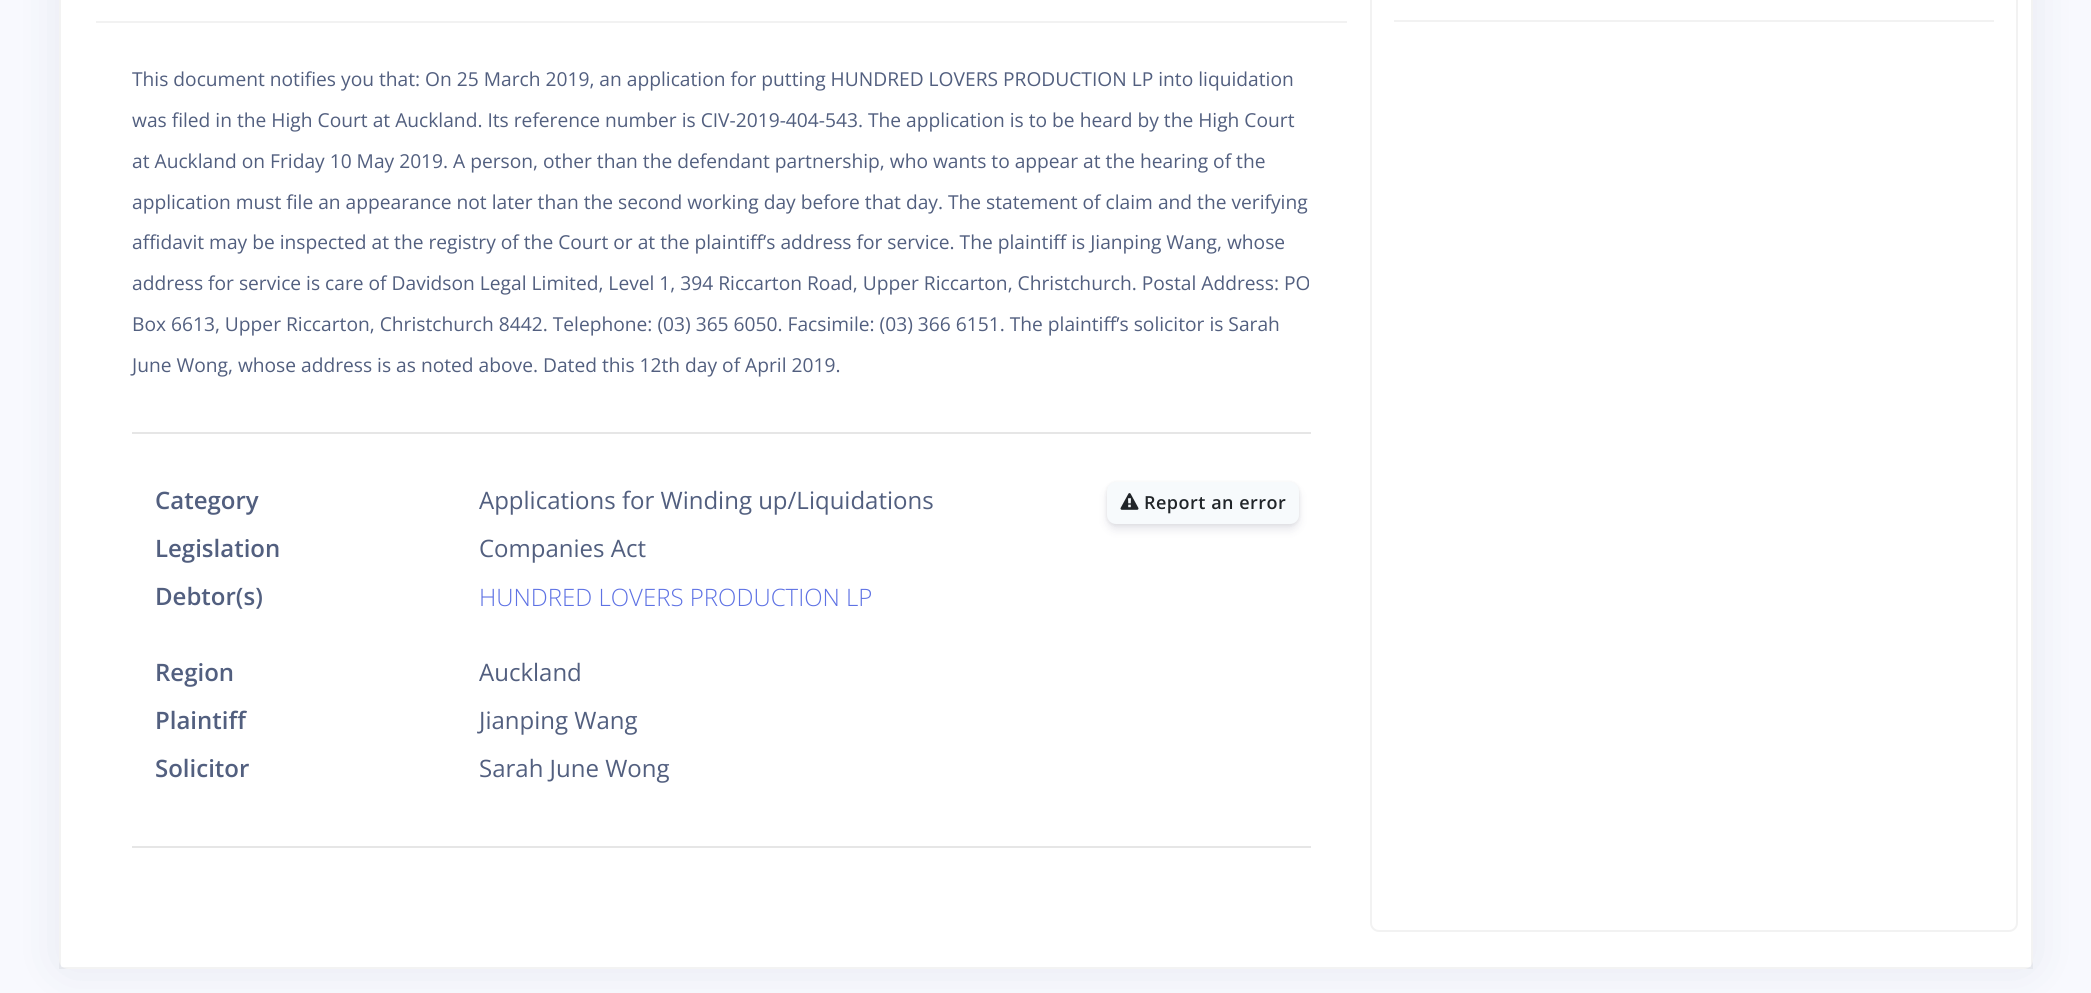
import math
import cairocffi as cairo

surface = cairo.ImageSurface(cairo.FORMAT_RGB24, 2091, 993)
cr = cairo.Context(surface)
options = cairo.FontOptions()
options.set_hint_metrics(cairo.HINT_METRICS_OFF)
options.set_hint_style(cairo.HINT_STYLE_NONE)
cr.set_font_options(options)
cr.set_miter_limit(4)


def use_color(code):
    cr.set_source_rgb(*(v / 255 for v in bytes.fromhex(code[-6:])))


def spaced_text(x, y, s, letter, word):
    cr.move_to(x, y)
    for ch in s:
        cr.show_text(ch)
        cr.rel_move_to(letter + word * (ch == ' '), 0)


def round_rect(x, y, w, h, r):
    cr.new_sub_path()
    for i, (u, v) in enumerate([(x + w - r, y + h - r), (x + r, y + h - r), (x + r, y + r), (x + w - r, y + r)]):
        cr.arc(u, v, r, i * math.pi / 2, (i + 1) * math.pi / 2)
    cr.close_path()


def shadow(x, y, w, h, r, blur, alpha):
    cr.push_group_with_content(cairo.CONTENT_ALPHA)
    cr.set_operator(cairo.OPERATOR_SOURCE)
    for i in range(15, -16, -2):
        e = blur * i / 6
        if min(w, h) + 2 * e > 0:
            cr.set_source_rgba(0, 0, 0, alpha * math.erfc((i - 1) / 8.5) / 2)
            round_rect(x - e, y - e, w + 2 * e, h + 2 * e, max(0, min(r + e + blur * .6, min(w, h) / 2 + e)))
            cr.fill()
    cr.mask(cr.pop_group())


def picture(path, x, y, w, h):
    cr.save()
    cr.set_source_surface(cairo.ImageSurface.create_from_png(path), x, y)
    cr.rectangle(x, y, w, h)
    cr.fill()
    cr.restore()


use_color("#f8f9fe")
cr.paint()
use_color("#8898aa")
shadow(59, -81, 1974, 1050, 9, 24, 0.15)
use_color("#ffffff")
round_rect(59, -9, 1974, 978, 9)
cr.fill()
cr.rectangle(60, -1, 1972, 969)
cr.set_source_rgba(0, 0, 0, 0.05)
cr.stroke()
use_color("#f2f2f2")
cr.rectangle(96, 21, 1251, 2)
cr.fill()
cr.select_font_face("Open Sans")
cr.set_font_size(19.2)
use_color("#525f7f")
cr.move_to(132, 86)
cr.show_text("This document notifies you that: On 25 March 2019, an application for putting HUNDRED LOVERS PRODUCTION LP into liquidation")
cr.move_to(132, 127)
cr.show_text("was filed in the High Court at Auckland. Its reference number is CIV-2019-404-543. The application is to be heard by the High Court")
cr.move_to(132, 168)
cr.show_text("at Auckland on Friday 10 May 2019. A person, other than the defendant partnership, who wants to appear at the hearing of the")
cr.move_to(132, 209)
cr.show_text("application must file an appearance not later than the second working day before that day. The statement of claim and the verifying")
cr.move_to(132, 249)
cr.show_text("affidavit may be inspected at the registry of the Court or at the plaintiff’s address for service. The plaintiff is Jianping Wang, whose")
cr.move_to(132, 290)
cr.show_text("address for service is care of Davidson Legal Limited, Level 1, 394 Riccarton Road, Upper Riccarton, Christchurch. Postal Address: PO")
cr.move_to(132, 331)
cr.show_text("Box 6613, Upper Riccarton, Christchurch 8442. Telephone: (03) 365 6050. Facsimile: (03) 366 6151. The plaintiff’s solicitor is Sarah")
cr.move_to(132, 372)
cr.show_text("June Wong, whose address is as noted above. Dated this 12th day of April 2019.")
use_color("#e6e6e6")
cr.rectangle(132, 432, 1179, 2)
cr.fill()
cr.select_font_face("Open Sans SemiBold")
cr.set_font_size(24)
use_color("#525f7f")
cr.move_to(155, 509)
cr.show_text("Category")
cr.select_font_face("Open Sans")
cr.move_to(479, 509)
cr.show_text("Applications for Winding up/Liquidations")
cr.select_font_face("Open Sans SemiBold")
cr.move_to(155, 557)
cr.show_text("Legislation")
cr.select_font_face("Open Sans")
cr.move_to(479, 557)
cr.show_text("Companies Act")
cr.select_font_face("Open Sans SemiBold")
cr.move_to(155, 605)
cr.show_text("Debtor(s)")
cr.select_font_face("Open Sans Light")
use_color("#5e72e4")
cr.move_to(479, 606)
cr.show_text("HUNDRED LOVERS PRODUCTION LP")
cr.select_font_face("Open Sans SemiBold")
use_color("#525f7f")
cr.move_to(155, 681)
cr.show_text("Region")
cr.select_font_face("Open Sans")
cr.move_to(479, 681)
cr.show_text("Auckland")
cr.select_font_face("Open Sans SemiBold")
cr.move_to(155, 729)
cr.show_text("Plaintiff")
cr.select_font_face("Open Sans")
cr.move_to(479, 729)
cr.show_text("Jianping Wang")
cr.select_font_face("Open Sans SemiBold")
cr.move_to(155, 777)
cr.show_text("Solicitor")
cr.select_font_face("Open Sans")
cr.move_to(479, 777)
cr.show_text("Sarah June Wong")
use_color("#000000")
shadow(1107, 483, 192, 42, 9, 2, 0.08)
use_color("#32325d")
shadow(1107, 488, 192, 42, 9, 4.5, 0.11)
use_color("#f7fafc")
round_rect(1108, 483, 190, 40, 8)
cr.fill_preserve()
cr.stroke()
picture("img1.png", 1120, 493, 19, 17)
cr.select_font_face("Open Sans SemiBold")
cr.set_font_size(18)
use_color("#212529")
spaced_text(1144, 509, "Report an error", 0.5, 0)
use_color("#e6e6e6")
cr.rectangle(132, 846, 1179, 2)
cr.fill()
round_rect(1371, -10, 646, 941, 8)
use_color("#f2f2f2")
cr.stroke()
cr.rectangle(1394, 20, 600, 2)
cr.fill()
surface.write_to_png("result.png")
